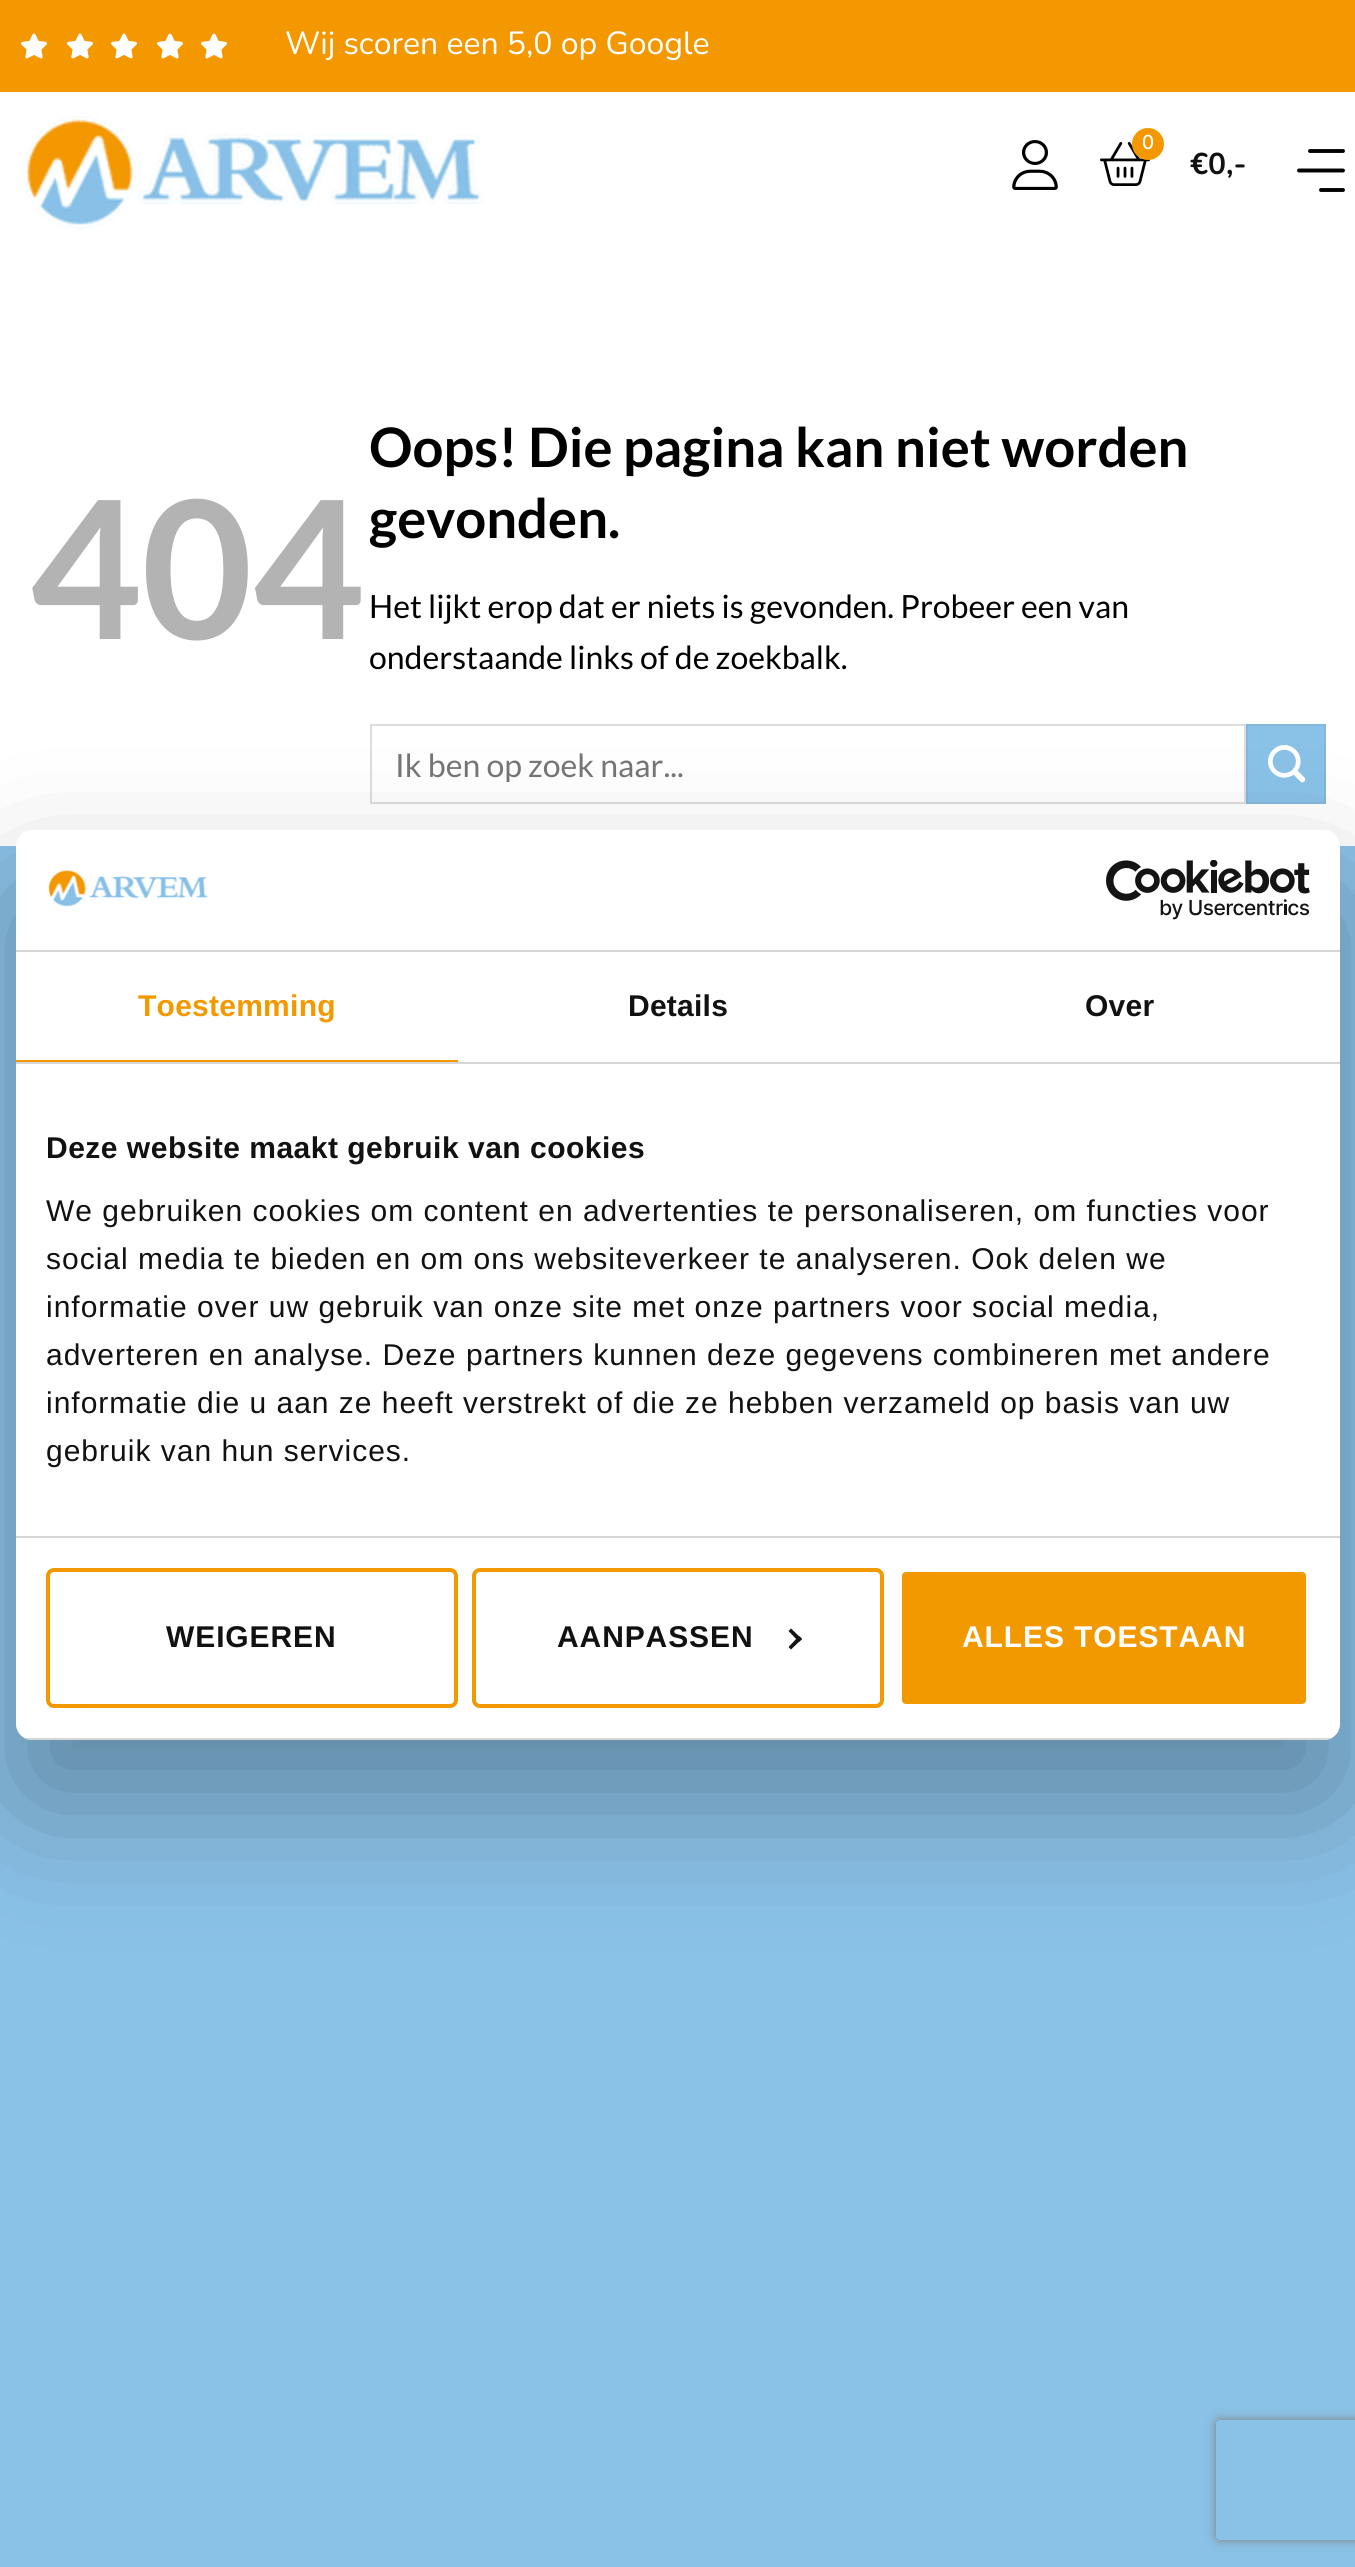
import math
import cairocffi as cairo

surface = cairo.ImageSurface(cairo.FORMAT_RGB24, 1355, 2567)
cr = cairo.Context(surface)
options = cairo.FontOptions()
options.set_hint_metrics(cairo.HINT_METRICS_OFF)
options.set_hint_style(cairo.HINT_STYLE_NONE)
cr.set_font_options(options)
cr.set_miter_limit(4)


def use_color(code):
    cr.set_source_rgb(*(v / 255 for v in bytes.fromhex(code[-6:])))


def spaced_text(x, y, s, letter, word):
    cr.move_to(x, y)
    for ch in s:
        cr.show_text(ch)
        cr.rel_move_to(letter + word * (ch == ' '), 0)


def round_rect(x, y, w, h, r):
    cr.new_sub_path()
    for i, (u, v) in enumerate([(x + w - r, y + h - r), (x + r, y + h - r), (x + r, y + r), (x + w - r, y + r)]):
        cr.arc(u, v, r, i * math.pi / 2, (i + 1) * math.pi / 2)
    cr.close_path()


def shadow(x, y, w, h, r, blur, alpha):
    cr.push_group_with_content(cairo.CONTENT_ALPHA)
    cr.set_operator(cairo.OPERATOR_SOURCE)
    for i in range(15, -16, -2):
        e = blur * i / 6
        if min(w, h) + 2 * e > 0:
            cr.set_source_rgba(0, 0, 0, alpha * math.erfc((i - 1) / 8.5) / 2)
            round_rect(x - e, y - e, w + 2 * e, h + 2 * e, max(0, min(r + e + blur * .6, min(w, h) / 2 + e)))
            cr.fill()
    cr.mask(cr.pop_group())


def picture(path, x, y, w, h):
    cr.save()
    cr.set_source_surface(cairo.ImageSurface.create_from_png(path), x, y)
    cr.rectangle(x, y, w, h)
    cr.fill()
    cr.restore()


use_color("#8ac1e7")
cr.paint()
use_color("#ffffff")
cr.rectangle(0, 92, 1355, 754)
cr.fill()
use_color("#f39801")
cr.rectangle(0, 0, 1355, 92)
cr.fill()
picture("img1.png", 21, 33, 26, 26)
picture("img1.png", 67, 33, 26, 26)
picture("img1.png", 111, 33, 26, 26)
picture("img1.png", 157, 33, 26, 26)
picture("img1.png", 201, 33, 26, 26)
cr.select_font_face("Nunito")
cr.set_font_size(32)
use_color("#ffffff")
cr.move_to(285, 54)
cr.show_text("Wij scoren een 5,0 op Google")
picture("img2.png", 22, 116, 462, 114)
picture("img3.png", 1012, 140, 46, 50)
picture("img4.png", 1100, 142, 50, 44)
use_color("#f39801")
cr.arc(1148, 144, 16, 0, 2 * math.pi)
cr.fill()
cr.select_font_face("Nunito SemiBold")
cr.set_font_size(20)
use_color("#ffffff")
cr.move_to(1142, 149)
cr.show_text("0")
cr.select_font_face("Nunito", cairo.FONT_SLANT_NORMAL, cairo.FONT_WEIGHT_BOLD)
cr.set_font_size(30)
use_color("#111111")
cr.move_to(1190, 174)
cr.show_text("€0,-")
cr.new_path()
cr.move_to(1343, 151)
cr.line_to(1310, 151)
cr.move_to(1343, 170.5)
cr.line_to(1299, 170.5)
cr.move_to(1343, 190)
cr.line_to(1321, 190)
use_color("#000000")
cr.set_line_width(3.9)
cr.set_line_cap(cairo.LINE_CAP_ROUND)
cr.set_line_join(cairo.LINE_JOIN_ROUND)
cr.stroke()
cr.select_font_face("Lato", cairo.FONT_SLANT_NORMAL, cairo.FONT_WEIGHT_BOLD)
cr.set_font_size(192)
use_color("#b3b3b3")
cr.move_to(30, 639)
cr.show_text("404")
cr.set_font_size(54.4)
use_color("#000000")
cr.move_to(369, 467)
cr.show_text("Oops! Die pagina kan niet worden")
cr.move_to(369, 538)
cr.show_text("gevonden.")
cr.select_font_face("Lato")
cr.set_font_size(32)
cr.move_to(369, 618)
cr.show_text("Het lijkt erop dat er niets is gevonden. Probeer een van")
cr.move_to(369, 669)
cr.show_text("onderstaande links of de zoekbalk.")
cr.rectangle(371, 725, 874, 78)
use_color("#dddddd")
cr.set_line_width(2)
cr.set_line_cap(cairo.LINE_CAP_BUTT)
cr.set_line_join(cairo.LINE_JOIN_MITER)
cr.stroke()
cr.save()
cr.rectangle(396, 744, 816, 38)
cr.clip()
use_color("#757575")
cr.move_to(395, 777)
cr.show_text("Ik ben op zoek naar...")
cr.restore()
use_color("#8ac1e7")
cr.rectangle(1247, 725, 78, 78)
cr.fill_preserve()
use_color("#83b7db")
cr.stroke()
picture("img5.png", 1268, 745, 38, 38)
use_color("#000000")
shadow(16, 894, 1324, 910, 16, 68, 0.3)
use_color("#ffffff")
round_rect(16, 830, 1324, 910, 16)
cr.fill()
use_color("#d6d6d6")
cr.rectangle(16, 950, 1324, 2)
cr.fill()
picture("img6.png", 48, 870, 161, 37)
picture("img7.png", 1106, 860, 204, 60)
cr.rectangle(16, 1062, 1324, 2)
cr.fill()
use_color("#f29900")
cr.rectangle(16, 1060, 442, 2)
cr.fill()
cr.select_font_face("Liberation Sans", cairo.FONT_SLANT_NORMAL, cairo.FONT_WEIGHT_BOLD)
cr.set_font_size(30)
spaced_text(138, 1016, "Toestemming", 0.25, 0)
use_color("#111111")
spaced_text(628, 1016, "Details", 0.25, 0)
spaced_text(1085, 1016, "Over", 0.25, 0)
use_color("#d6d6d6")
cr.rectangle(16, 1536, 1324, 2)
cr.fill()
use_color("#111111")
spaced_text(46, 1158, "Deze website maakt gebruik van cookies", 0.5, 0)
cr.select_font_face("Liberation Sans")
spaced_text(46, 1221, "We gebruiken cookies om content en advertenties te personaliseren, om functies voor", 1, 0)
spaced_text(46, 1269, "social media te bieden en om ons websiteverkeer te analyseren. Ook delen we", 1, 0)
spaced_text(46, 1317, "informatie over uw gebruik van onze site met onze partners voor social media,", 1, 0)
spaced_text(46, 1365, "adverteren en analyse. Deze partners kunnen deze gegevens combineren met andere", 1, 0)
spaced_text(46, 1413, "informatie die u aan ze heeft verstrekt of die ze hebben verzameld op basis van uw", 1, 0)
spaced_text(46, 1461, "gebruik van hun services.", 1, 0)
cr.save()
round_rect(16, 830, 1324, 910, 16)
cr.clip()
use_color("#d6d6d6")
cr.rectangle(16, 1738, 1324, 2)
cr.fill()
cr.restore()
round_rect(48, 1570, 408, 136, 6)
use_color("#f29900")
cr.set_line_width(4)
cr.stroke()
cr.select_font_face("Liberation Sans", cairo.FONT_SLANT_NORMAL, cairo.FONT_WEIGHT_BOLD)
use_color("#111111")
spaced_text(166, 1647, "WEIGEREN", 0.9, 0)
round_rect(474, 1570, 408, 136, 6)
use_color("#f29900")
cr.stroke()
use_color("#111111")
spaced_text(557, 1647, "AANPASSEN", 0.9, 0)
use_color("#141414")
cr.new_path()
cr.move_to(791, 1628.5)
cr.line_to(802, 1639)
cr.line_to(799, 1642)
cr.line_to(788.5, 1631)
cr.close_path()
cr.fill()
cr.new_path()
cr.move_to(799, 1636)
cr.line_to(802, 1639)
cr.line_to(791, 1649.5)
cr.line_to(788.5, 1647)
cr.close_path()
cr.fill()
use_color("#f29900")
round_rect(900, 1570, 408, 136, 6)
cr.fill_preserve()
use_color("#ffffff")
cr.stroke()
spaced_text(962, 1647, "ALLES TOESTAAN", 0.9, 0)
cr.save()
cr.set_fill_rule(cairo.FILL_RULE_EVEN_ODD)
cr.new_path()
cr.move_to(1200, 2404)
cr.line_to(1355, 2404)
cr.line_to(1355, 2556)
cr.line_to(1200, 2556)
cr.close_path()
cr.move_to(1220, 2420)
cr.line_to(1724, 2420)
cr.curve_to(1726, 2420, 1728, 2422, 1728, 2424)
cr.line_to(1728, 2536)
cr.curve_to(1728, 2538, 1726, 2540, 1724, 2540)
cr.line_to(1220, 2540)
cr.curve_to(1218, 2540, 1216, 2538, 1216, 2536)
cr.line_to(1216, 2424)
cr.curve_to(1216, 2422, 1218, 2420, 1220, 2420)
cr.close_path()
cr.clip()
use_color("#808080")
shadow(1216, 2420, 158, 120, 4, 5, 1)
cr.restore()
surface.write_to_png("result.png")
